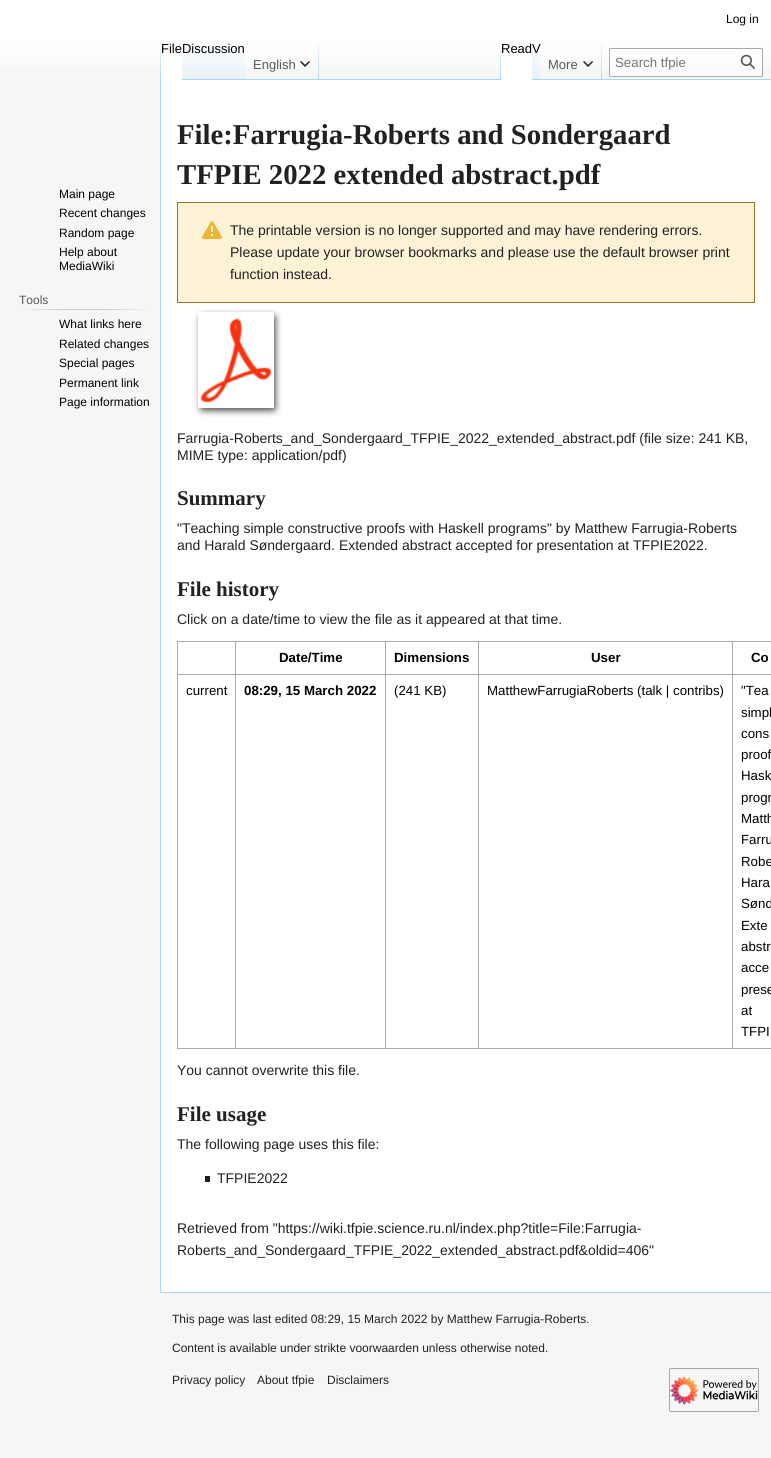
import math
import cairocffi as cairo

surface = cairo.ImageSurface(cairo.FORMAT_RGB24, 771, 1458)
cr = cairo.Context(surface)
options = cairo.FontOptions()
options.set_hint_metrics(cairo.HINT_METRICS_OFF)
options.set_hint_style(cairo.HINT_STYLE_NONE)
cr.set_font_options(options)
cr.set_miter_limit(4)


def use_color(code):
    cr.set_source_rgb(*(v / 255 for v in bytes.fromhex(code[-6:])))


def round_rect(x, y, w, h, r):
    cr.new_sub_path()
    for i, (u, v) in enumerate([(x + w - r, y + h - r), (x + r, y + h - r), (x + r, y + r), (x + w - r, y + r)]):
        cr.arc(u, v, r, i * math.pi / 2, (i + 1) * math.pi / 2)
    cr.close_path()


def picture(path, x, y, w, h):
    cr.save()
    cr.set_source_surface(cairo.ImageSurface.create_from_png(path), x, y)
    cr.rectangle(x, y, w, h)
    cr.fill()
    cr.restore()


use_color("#f6f6f6")
cr.paint()
gradient = cairo.LinearGradient(386, 0, 386, 80)
gradient.add_color_stop_rgba(0.5, 1, 1, 1, 1)
gradient.add_color_stop_rgba(1, 0.965, 0.965, 0.965, 1)
cr.set_source(gradient)
cr.rectangle(0, 0, 771, 69)
cr.fill()
cr.select_font_face("Liberation Sans")
cr.set_font_size(12)
use_color("#000000")
cr.move_to(726, 23)
cr.show_text("Log in")
use_color("#a7d7f9")
cr.rectangle(160, 1292, 611, 1)
cr.fill()
cr.rectangle(160, 79, 1, 1214)
cr.fill()
gradient = cairo.LinearGradient(161, 40, 161, 80)
gradient.add_color_stop_rgba(0, 0.655, 0.843, 0.976, 0)
gradient.add_color_stop_rgba(1, 0.655, 0.843, 0.976, 1)
cr.set_source(gradient)
cr.rectangle(160, 40, 1, 40)
cr.fill()
use_color("#ffffff")
cr.rectangle(161, 51, 21, 29)
cr.fill()
gradient = cairo.LinearGradient(214, 80, 214, 40)
gradient.add_color_stop_rgba(0, 0.467, 0.757, 0.965, 1)
gradient.add_color_stop_rgba(0.03, 0.91, 0.949, 0.973, 1)
gradient.add_color_stop_rgba(1, 1, 1, 1, 1)
cr.set_source(gradient)
cr.rectangle(182, 46, 63, 34)
cr.fill()
cr.set_font_size(13)
use_color("#000000")
cr.move_to(161, 53)
cr.show_text("FileDiscussion")
use_color("#a7d7f9")
cr.rectangle(245, 79, 526, 1)
cr.fill()
gradient = cairo.LinearGradient(319, 40, 319, 80)
gradient.add_color_stop_rgba(0, 0.655, 0.843, 0.976, 0)
gradient.add_color_stop_rgba(1, 0.655, 0.843, 0.976, 1)
cr.set_source(gradient)
cr.rectangle(318, 40, 1, 40)
cr.fill()
use_color("#54595d")
cr.move_to(253, 69)
cr.show_text("English")
picture("img1.png", 300, 61, 10, 6)
gradient = cairo.LinearGradient(501, 40, 501, 80)
gradient.add_color_stop_rgba(0, 0.655, 0.843, 0.976, 0)
gradient.add_color_stop_rgba(1, 0.655, 0.843, 0.976, 1)
cr.set_source(gradient)
cr.rectangle(500, 40, 1, 40)
cr.fill()
use_color("#ffffff")
cr.rectangle(501, 51, 31, 29)
cr.fill()
use_color("#000000")
cr.move_to(501, 53)
cr.show_text("Read")
gradient = cairo.LinearGradient(536, 80, 536, 40)
gradient.add_color_stop_rgba(0, 0.467, 0.757, 0.965, 1)
gradient.add_color_stop_rgba(0.03, 0.91, 0.949, 0.973, 1)
gradient.add_color_stop_rgba(1, 1, 1, 1, 1)
cr.set_source(gradient)
cr.rectangle(532, 40, 8, 40)
cr.fill()
use_color("#000000")
cr.move_to(532, 53)
cr.show_text("V")
gradient = cairo.LinearGradient(602, 40, 602, 80)
gradient.add_color_stop_rgba(0, 0.655, 0.843, 0.976, 0)
gradient.add_color_stop_rgba(1, 0.655, 0.843, 0.976, 1)
cr.set_source(gradient)
cr.rectangle(601, 40, 1, 40)
cr.fill()
use_color("#54595d")
cr.move_to(548, 69)
cr.show_text("More")
picture("img1.png", 583, 61, 10, 6)
cr.set_source_rgba(1, 1, 1, 0.5)
round_rect(609.5, 48.5, 153, 28, 1.5)
cr.fill_preserve()
use_color("#a2a9b1")
cr.set_line_width(1)
cr.stroke()
cr.set_font_size(13.3)
use_color("#72777d")
cr.move_to(615, 67)
cr.show_text("Search tfpie")
picture("img2.png", 740, 54, 15, 15)
cr.set_font_size(12)
use_color("#000000")
cr.move_to(59, 198)
cr.show_text("Main page")
cr.move_to(59, 217)
cr.show_text("Recent changes")
cr.move_to(59, 237)
cr.show_text("Random page")
cr.move_to(59, 256)
cr.show_text("Help about")
cr.move_to(59, 270)
cr.show_text("MediaWiki")
gradient = cairo.LinearGradient(19, 310, 150, 310)
gradient.add_color_stop_rgba(0, 0.965, 0.965, 0.965, 1)
gradient.add_color_stop_rgba(0.33, 0.784, 0.8, 0.82, 1)
gradient.add_color_stop_rgba(0.66, 0.784, 0.8, 0.82, 1)
gradient.add_color_stop_rgba(1, 0.965, 0.965, 0.965, 1)
cr.set_source(gradient)
cr.rectangle(19, 309, 131, 1)
cr.fill()
use_color("#54595d")
cr.move_to(19, 304)
cr.show_text("Tools")
use_color("#000000")
cr.move_to(59, 328)
cr.show_text("What links here")
cr.move_to(59, 348)
cr.show_text("Related changes")
cr.move_to(59, 367)
cr.show_text("Special pages")
cr.move_to(59, 387)
cr.show_text("Permanent link")
cr.move_to(59, 406)
cr.show_text("Page information")
use_color("#ffffff")
cr.rectangle(161, 80, 610, 1212)
cr.fill()
cr.select_font_face("Liberation Serif", cairo.FONT_SLANT_NORMAL, cairo.FONT_WEIGHT_BOLD)
cr.set_font_size(28.75)
use_color("#202122")
cr.move_to(177, 144)
cr.show_text("File:Farrugia-Roberts and Sondergaard")
cr.move_to(177, 184)
cr.show_text("TFPIE 2022 extended abstract.pdf")
use_color("#fdf2d5")
cr.rectangle(177.5, 202.5, 577, 100)
cr.fill_preserve()
use_color("#987027")
cr.stroke()
picture("img3.png", 202, 221, 20, 18)
cr.select_font_face("Liberation Sans")
cr.set_font_size(14)
use_color("#202122")
cr.move_to(230, 235)
cr.show_text("The printable version is no longer supported and may have rendering errors.")
cr.move_to(230, 257)
cr.show_text("Please update your browser bookmarks and please use the default browser print")
cr.move_to(230, 279)
cr.show_text("function instead.")
picture("img4.png", 194, 309, 88, 108)
cr.move_to(177, 443)
cr.show_text("Farrugia-Roberts_and_Sondergaard_TFPIE_2022_extended_abstract.pdf (file size: 241 KB,")
cr.move_to(177, 460)
cr.show_text("MIME type: application/pdf)")
cr.select_font_face("Liberation Serif", cairo.FONT_SLANT_NORMAL, cairo.FONT_WEIGHT_BOLD)
cr.set_font_size(21)
cr.move_to(177, 505)
cr.show_text("Summary")
cr.select_font_face("Liberation Sans")
cr.set_font_size(14)
cr.move_to(177, 533)
cr.show_text("\"Teaching simple constructive proofs with Haskell programs\" by Matthew Farrugia-Roberts")
cr.move_to(177, 550)
cr.show_text("and Harald Søndergaard. Extended abstract accepted for presentation at TFPIE2022.")
cr.select_font_face("Liberation Serif", cairo.FONT_SLANT_NORMAL, cairo.FONT_WEIGHT_BOLD)
cr.set_font_size(21)
cr.move_to(177, 596)
cr.show_text("File history")
cr.select_font_face("Liberation Sans")
cr.set_font_size(14)
cr.move_to(177, 624)
cr.show_text("Click on a date/time to view the file as it appeared at that time.")
use_color("#aaaaaa")
cr.rectangle(177, 641, 594, 1)
cr.fill()
cr.rectangle(177, 1048, 594, 1)
cr.fill()
cr.rectangle(177, 641, 1, 408)
cr.fill()
cr.rectangle(732, 674, 39, 1)
cr.fill()
cr.rectangle(732, 674, 1, 375)
cr.fill()
cr.rectangle(478, 674, 255, 1)
cr.fill()
cr.rectangle(478, 674, 1, 375)
cr.fill()
cr.rectangle(385, 674, 94, 1)
cr.fill()
cr.rectangle(385, 674, 1, 375)
cr.fill()
cr.rectangle(235, 674, 151, 1)
cr.fill()
cr.rectangle(235, 674, 1, 375)
cr.fill()
cr.rectangle(177, 674, 59, 1)
cr.fill()
cr.rectangle(235, 641, 1, 34)
cr.fill()
cr.select_font_face("Liberation Sans", cairo.FONT_SLANT_NORMAL, cairo.FONT_WEIGHT_BOLD)
cr.set_font_size(13.3)
use_color("#000000")
cr.move_to(279, 662)
cr.show_text("Date/Time")
use_color("#aaaaaa")
cr.rectangle(385, 641, 1, 34)
cr.fill()
use_color("#000000")
cr.move_to(394, 662)
cr.show_text("Dimensions")
use_color("#aaaaaa")
cr.rectangle(478, 641, 1, 34)
cr.fill()
use_color("#000000")
cr.move_to(591, 662)
cr.show_text("User")
use_color("#aaaaaa")
cr.rectangle(732, 641, 1, 34)
cr.fill()
use_color("#000000")
cr.move_to(751, 662)
cr.show_text("Co")
cr.select_font_face("Liberation Sans")
cr.move_to(186, 695)
cr.show_text("current")
cr.select_font_face("Liberation Sans", cairo.FONT_SLANT_NORMAL, cairo.FONT_WEIGHT_BOLD)
cr.move_to(244, 695)
cr.show_text("08:29, 15 March 2022")
cr.select_font_face("Liberation Sans")
cr.move_to(394, 695)
cr.show_text("(241 KB)")
cr.move_to(487, 695)
cr.show_text("MatthewFarrugiaRoberts (talk | contribs)")
cr.move_to(741, 695)
cr.show_text("\"Tea")
cr.move_to(741, 717)
cr.show_text("simpl")
cr.move_to(741, 738)
cr.show_text("cons")
cr.move_to(741, 759)
cr.show_text("proof")
cr.move_to(741, 780)
cr.show_text("Hask")
cr.move_to(741, 802)
cr.show_text("progr")
cr.move_to(741, 823)
cr.show_text("Matth")
cr.move_to(741, 844)
cr.show_text("Farru")
cr.move_to(741, 866)
cr.show_text("Robe")
cr.move_to(741, 887)
cr.show_text("Hara")
cr.move_to(741, 908)
cr.show_text("Sønd")
cr.move_to(741, 930)
cr.show_text("Exte")
cr.move_to(741, 951)
cr.show_text("abstr")
cr.move_to(741, 972)
cr.show_text("acce")
cr.move_to(741, 994)
cr.show_text("prese")
cr.move_to(741, 1015)
cr.show_text("at")
cr.move_to(741, 1036)
cr.show_text("TFPI")
cr.set_font_size(14)
use_color("#202122")
cr.move_to(177, 1075)
cr.show_text("You cannot overwrite this file.")
cr.select_font_face("Liberation Serif", cairo.FONT_SLANT_NORMAL, cairo.FONT_WEIGHT_BOLD)
cr.set_font_size(21)
cr.move_to(177, 1121)
cr.show_text("File usage")
cr.select_font_face("Liberation Sans")
cr.set_font_size(14)
cr.move_to(177, 1149)
cr.show_text("The following page uses this file:")
cr.rectangle(205, 1176, 5, 6)
cr.fill()
cr.move_to(217, 1183)
cr.show_text("TFPIE2022")
cr.move_to(177, 1233)
cr.show_text("Retrieved from \"https://wiki.tfpie.science.ru.nl/index.php?title=File:Farrugia-")
cr.move_to(177, 1255)
cr.show_text("Roberts_and_Sondergaard_TFPIE_2022_extended_abstract.pdf&oldid=406\"")
cr.set_font_size(12)
cr.move_to(172, 1323)
cr.show_text("This page was last edited 08:29, 15 March 2022 by Matthew Farrugia-Roberts.")
cr.move_to(172, 1352)
cr.show_text("Content is available under strikte voorwaarden unless otherwise noted.")
cr.move_to(172, 1384)
cr.show_text("Privacy policy")
cr.move_to(257, 1384)
cr.show_text("About tfpie")
cr.move_to(327, 1384)
cr.show_text("Disclaimers")
round_rect(669.5, 1368.5, 89, 43, 1.5)
use_color("#a2a9b1")
cr.stroke()
picture("img5.png", 670, 1376, 88, 29)
surface.write_to_png("result.png")
